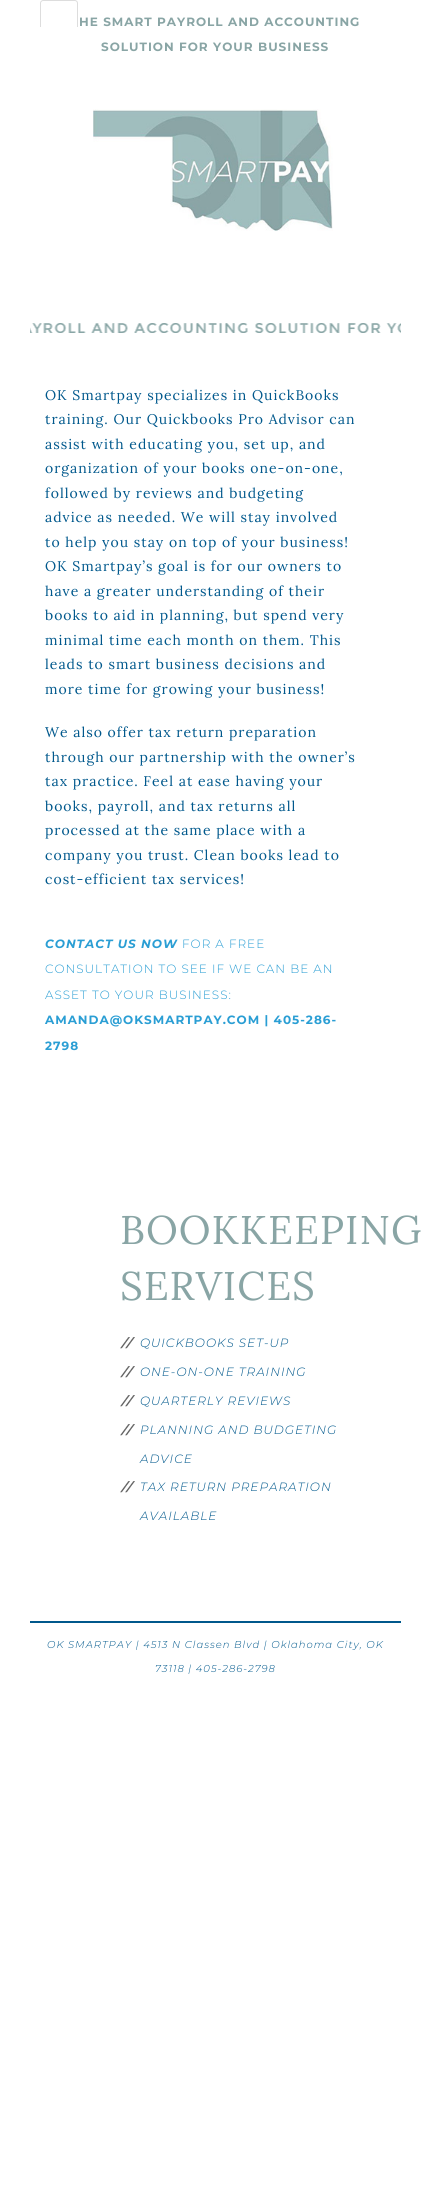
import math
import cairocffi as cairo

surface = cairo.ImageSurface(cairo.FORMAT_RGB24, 431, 2190)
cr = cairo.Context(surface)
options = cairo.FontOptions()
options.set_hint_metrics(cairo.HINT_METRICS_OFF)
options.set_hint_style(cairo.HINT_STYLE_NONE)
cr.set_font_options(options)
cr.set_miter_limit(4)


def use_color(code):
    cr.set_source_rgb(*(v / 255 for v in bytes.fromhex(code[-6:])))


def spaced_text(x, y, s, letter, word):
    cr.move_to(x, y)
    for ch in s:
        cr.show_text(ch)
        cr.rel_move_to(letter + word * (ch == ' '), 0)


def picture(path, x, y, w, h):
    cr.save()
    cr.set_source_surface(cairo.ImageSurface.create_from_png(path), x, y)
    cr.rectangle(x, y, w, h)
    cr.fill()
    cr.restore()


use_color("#ffffff")
cr.paint()
use_color("#dddddd")
cr.set_fill_rule(cairo.FILL_RULE_EVEN_ODD)
cr.new_path()
cr.move_to(43, 0)
cr.line_to(75, 0)
cr.curve_to(76.5, 0, 78, 1.5, 78, 3)
cr.line_to(78, 27)
cr.line_to(40, 27)
cr.line_to(40, 3)
cr.curve_to(40, 1.5, 41.5, 0, 43, 0)
cr.close_path()
cr.move_to(43, 1)
cr.line_to(75, 1)
cr.curve_to(76, 1, 77, 2, 77, 3)
cr.line_to(77, 27)
cr.line_to(41, 27)
cr.line_to(41, 3)
cr.curve_to(41, 2, 42, 1, 43, 1)
cr.close_path()
cr.fill()
cr.select_font_face("Montserrat", cairo.FONT_SLANT_NORMAL, cairo.FONT_WEIGHT_BOLD)
cr.set_font_size(12)
use_color("#89a5a5")
spaced_text(79, 26, "HE SMART PAYROLL AND ACCOUNTING", 1, 0)
spaced_text(101, 51, "SOLUTION FOR YOUR BUSINESS", 1, 0)
picture("img1.png", 30, 323, 371, 10)
picture("img2.png", 93, 109, 240, 122)
cr.select_font_face("Lora")
cr.set_font_size(14)
use_color("#00588c")
spaced_text(45, 400, "OK Smartpay specializes in QuickBooks", 1, 0)
spaced_text(45, 424, "training. Our Quickbooks Pro Advisor can", 1, 0)
spaced_text(45, 449, "assist with educating you, set up, and", 1, 0)
spaced_text(45, 473, "organization of your books one-on-one,", 1, 0)
spaced_text(45, 498, "followed by reviews and budgeting", 1, 0)
spaced_text(45, 522, "advice as needed. We will stay involved", 1, 0)
spaced_text(45, 547, "to help you stay on top of your business!", 1, 0)
spaced_text(45, 571, "OK Smartpay’s goal is for our owners to", 1, 0)
spaced_text(45, 596, "have a greater understanding of their", 1, 0)
spaced_text(45, 620, "books to aid in planning, but spend very", 1, 0)
spaced_text(45, 645, "minimal time each month on them. This", 1, 0)
spaced_text(45, 669, "leads to smart business decisions and", 1, 0)
spaced_text(45, 694, "more time for growing your business!", 1, 0)
spaced_text(45, 737, "We also offer tax return preparation", 1, 0)
spaced_text(45, 762, "through our partnership with the owner’s", 1, 0)
spaced_text(45, 786, "tax practice. Feel at ease having your", 1, 0)
spaced_text(45, 811, "books, payroll, and tax returns all", 1, 0)
spaced_text(45, 835, "processed at the same place with a", 1, 0)
spaced_text(45, 860, "company you trust. Clean books lead to", 1, 0)
spaced_text(45, 884, "cost-efficient tax services!", 1, 0)
cr.select_font_face("Montserrat", cairo.FONT_SLANT_ITALIC, cairo.FONT_WEIGHT_BOLD)
cr.set_font_size(12)
use_color("#2a9ed4")
spaced_text(45, 948, "CONTACT US NOW", 1, 0)
cr.select_font_face("Montserrat Light")
spaced_text(182, 948, "FOR A FREE", 1, 0)
spaced_text(45, 973, "CONSULTATION TO SEE IF WE CAN BE AN", 1, 0)
spaced_text(45, 999, "ASSET TO YOUR BUSINESS:", 1, 0)
cr.select_font_face("Montserrat", cairo.FONT_SLANT_NORMAL, cairo.FONT_WEIGHT_BOLD)
spaced_text(45, 1024, "AMANDA@OKSMARTPAY.COM | 405-286-", 1, 0)
spaced_text(45, 1050, "2798", 1, 0)
cr.select_font_face("Lora")
cr.set_font_size(40)
use_color("#89a5a5")
spaced_text(120, 1244, "BOOKKEEPING", 1, 0)
spaced_text(120, 1300, "SERVICES", 1, 0)
picture("img3.png", 120, 1337, 15, 12)
cr.select_font_face("Montserrat Light", cairo.FONT_SLANT_ITALIC)
cr.set_font_size(12)
use_color("#00588c")
spaced_text(140, 1347, "QUICKBOOKS SET-UP", 1, 0)
picture("img3.png", 120, 1366, 15, 12)
spaced_text(140, 1376, "ONE-ON-ONE TRAINING", 1, 0)
picture("img3.png", 120, 1395, 15, 12)
spaced_text(140, 1405, "QUARTERLY REVIEWS", 1, 0)
picture("img3.png", 120, 1424, 15, 12)
spaced_text(140, 1434, "PLANNING AND BUDGETING", 1, 0)
spaced_text(140, 1463, "ADVICE", 1, 0)
picture("img3.png", 120, 1481, 15, 12)
spaced_text(140, 1491, "TAX RETURN PREPARATION", 1, 0)
spaced_text(140, 1520, "AVAILABLE", 1, 0)
cr.rectangle(30, 1621, 371, 2)
cr.fill()
cr.set_font_size(10)
spaced_text(47, 1648, "OK SMARTPAY | 4513 N Classen Blvd | Oklahoma City, OK", 1, 0)
spaced_text(155, 1672, "73118 | 405-286-2798", 1, 0)
surface.write_to_png("result.png")
